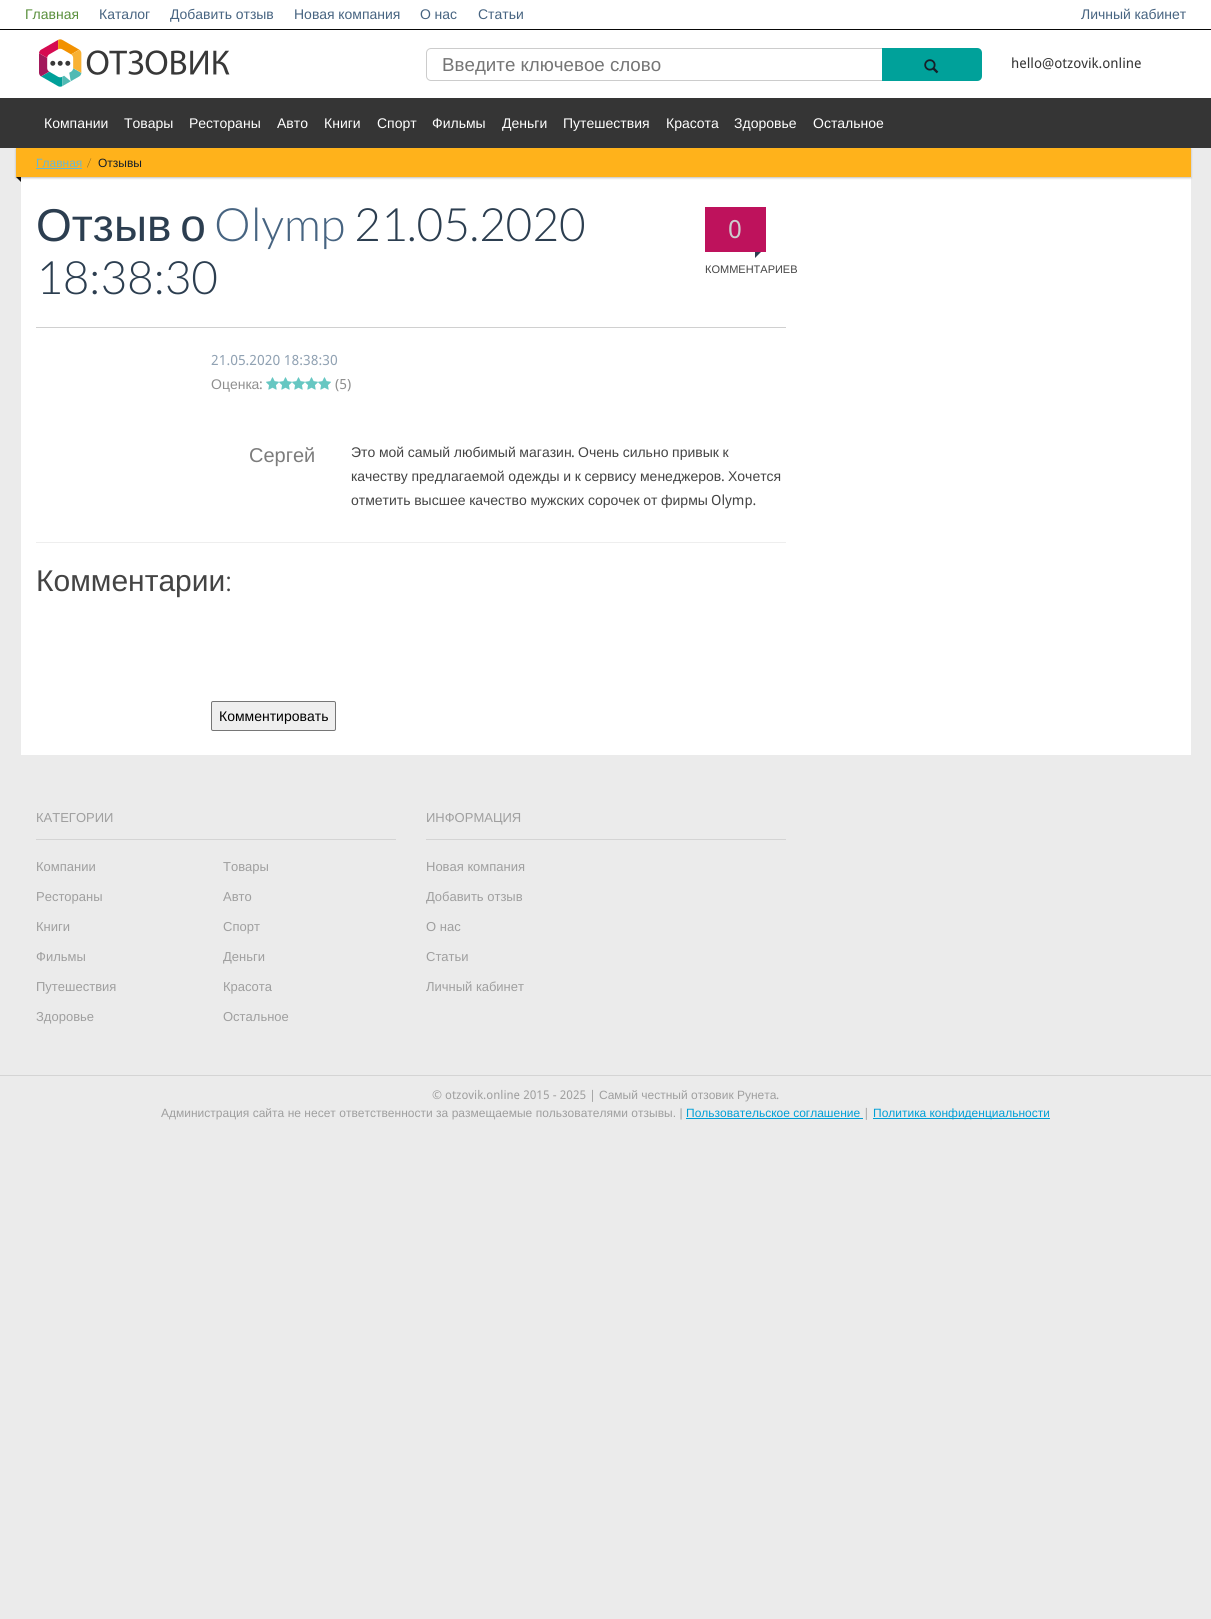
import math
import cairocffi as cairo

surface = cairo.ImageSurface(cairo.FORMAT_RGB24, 1211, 1619)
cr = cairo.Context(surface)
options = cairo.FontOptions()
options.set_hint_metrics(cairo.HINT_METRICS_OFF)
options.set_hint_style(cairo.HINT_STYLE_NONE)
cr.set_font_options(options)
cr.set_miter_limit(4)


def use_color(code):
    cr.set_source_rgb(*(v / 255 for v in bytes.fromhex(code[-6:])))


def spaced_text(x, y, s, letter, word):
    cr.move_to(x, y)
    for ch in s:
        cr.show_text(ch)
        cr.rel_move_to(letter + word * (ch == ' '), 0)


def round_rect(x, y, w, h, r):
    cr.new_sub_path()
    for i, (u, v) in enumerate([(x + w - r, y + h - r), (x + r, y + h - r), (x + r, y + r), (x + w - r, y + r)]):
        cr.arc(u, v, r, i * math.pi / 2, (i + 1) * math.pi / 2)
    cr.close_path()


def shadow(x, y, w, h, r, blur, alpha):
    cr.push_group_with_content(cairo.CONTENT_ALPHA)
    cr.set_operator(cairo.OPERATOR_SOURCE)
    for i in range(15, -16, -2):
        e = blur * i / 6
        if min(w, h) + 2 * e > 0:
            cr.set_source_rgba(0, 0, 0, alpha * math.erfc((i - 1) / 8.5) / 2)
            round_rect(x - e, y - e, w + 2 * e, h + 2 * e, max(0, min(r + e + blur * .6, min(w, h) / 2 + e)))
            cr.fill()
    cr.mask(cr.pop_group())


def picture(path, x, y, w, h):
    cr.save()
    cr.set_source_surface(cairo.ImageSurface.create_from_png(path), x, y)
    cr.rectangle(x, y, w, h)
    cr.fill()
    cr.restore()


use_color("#ebebeb")
cr.paint()
use_color("#ffffff")
cr.rectangle(0, 0, 1211, 29)
cr.fill()
use_color("#080808")
cr.rectangle(0, 29, 1211, 1)
cr.fill()
cr.select_font_face("Liberation Sans")
cr.set_font_size(14)
use_color("#598f3b")
cr.move_to(25, 19)
cr.show_text("Главная")
use_color("#476481")
cr.move_to(99, 19)
cr.show_text("Каталог")
spaced_text(170, 19, "Добавить отзыв", 0, -0.25)
spaced_text(294, 19, "Новая компания", 0, -0.25)
spaced_text(420, 19, "О нас", 0, -0.25)
cr.move_to(478, 19)
cr.show_text("Статьи")
spaced_text(1081, 19, "Личный кабинет", 0, -0.25)
use_color("#ffffff")
cr.rectangle(0, 30, 1211, 68)
cr.fill()
picture("img1.png", 39, 39, 191, 48)
round_rect(426.5, 48.5, 554, 32, 4.5)
use_color("#cccccc")
cr.set_line_width(1)
cr.stroke()
cr.set_font_size(18.75)
use_color("#757575")
cr.move_to(442, 71)
cr.show_text("Введите ключевое слово")
use_color("#00a19a")
cr.new_path()
cr.move_to(882, 48)
cr.line_to(977, 48)
cr.curve_to(980, 48, 982, 50, 982, 53)
cr.line_to(982, 76)
cr.curve_to(982, 79, 980, 81, 977, 81)
cr.line_to(882, 81)
cr.close_path()
cr.fill()
picture("img2.png", 924, 59, 15, 15)
cr.select_font_face("Droid Sans")
cr.set_font_size(14)
use_color("#353535")
cr.move_to(1011, 68)
cr.show_text("hello@otzovik.online")
use_color("#ffffff")
cr.rectangle(21, 177, 1170, 578)
cr.fill()
use_color("#000000")
shadow(16, 149, 1175, 29, 0, 1, 0.25)
use_color("#353535")
cr.rectangle(0, 98, 1211, 50)
cr.fill()
cr.select_font_face("Liberation Sans")
use_color("#ffffff")
cr.move_to(44, 128)
cr.show_text("Компании")
cr.move_to(124, 128)
cr.show_text("Товары")
cr.move_to(189, 128)
cr.show_text("Рестораны")
cr.move_to(277, 128)
cr.show_text("Авто")
cr.move_to(324, 128)
cr.show_text("Книги")
cr.move_to(377, 128)
cr.show_text("Спорт")
cr.move_to(432, 128)
cr.show_text("Фильмы")
cr.move_to(502, 128)
cr.show_text("Деньги")
cr.move_to(563, 128)
cr.show_text("Путешествия")
cr.move_to(666, 128)
cr.show_text("Красота")
cr.move_to(734, 128)
cr.show_text("Здоровье")
cr.move_to(813, 128)
cr.show_text("Остальное")
use_color("#ffb21b")
cr.rectangle(16, 148, 1175, 29)
cr.fill()
cr.set_font_size(12)
use_color("#66b7d6")
cr.move_to(36, 167)
cr.show_text("Главная")
cr.rectangle(36, 168, 46, 1)
cr.fill()
cr.select_font_face("Lato Light")
use_color("#735a23")
cr.move_to(87, 167)
cr.show_text("/")
cr.select_font_face("Liberation Sans")
use_color("#161f29")
cr.move_to(98, 167)
cr.show_text("Отзывы")
use_color("#111111")
cr.new_path()
cr.move_to(21, 177)
cr.line_to(21, 182)
cr.line_to(16, 177)
cr.close_path()
cr.fill()
use_color("#d0d0d0")
cr.rectangle(36, 327, 750, 1)
cr.fill()
cr.set_font_size(46)
use_color("#2c3e50")
spaced_text(36, 241, "Отзыв о", 0, -4)
cr.select_font_face("Lato Light")
use_color("#476481")
cr.move_to(214, 241)
cr.show_text("Olymp")
use_color("#2c3e50")
cr.move_to(354, 241)
cr.show_text("21.05.2020")
cr.move_to(36, 294)
cr.show_text("18:38:30")
use_color("#be125c")
cr.rectangle(705, 207, 61, 45)
cr.fill()
cr.select_font_face("Droid Sans")
cr.set_font_size(25)
use_color("#cccccc")
cr.move_to(728, 238)
cr.show_text("0")
use_color("#2c3e50")
cr.new_path()
cr.move_to(755, 258)
cr.line_to(755, 252)
cr.line_to(761, 252)
cr.close_path()
cr.fill()
cr.select_font_face("Liberation Sans")
cr.set_font_size(11)
use_color("#444444")
cr.move_to(705, 273)
cr.show_text("КОММЕНТАРИЕВ")
cr.select_font_face("Droid Sans")
cr.set_font_size(14)
use_color("#91a2b3")
cr.move_to(211, 365)
cr.show_text("21.05.2020 18:38:30")
cr.select_font_face("Liberation Sans")
use_color("#8f8f8f")
cr.move_to(211, 389)
cr.show_text("Оценка")
cr.select_font_face("Droid Sans")
cr.move_to(259, 389)
cr.show_text(":")
picture("img3.png", 266, 377, 13, 13)
picture("img3.png", 279, 377, 13, 13)
picture("img3.png", 292, 377, 13, 13)
picture("img3.png", 305, 377, 13, 13)
picture("img3.png", 318, 377, 13, 13)
cr.move_to(335, 389)
cr.show_text("(5)")
cr.select_font_face("Liberation Sans")
cr.set_font_size(20)
use_color("#7c7c7c")
cr.move_to(249, 462)
cr.show_text("Сергей")
cr.set_font_size(14)
use_color("#444444")
spaced_text(351, 457, "Это мой самый любимый магазин", 0, -0.25)
cr.select_font_face("Droid Sans")
cr.move_to(571, 457)
cr.show_text(".")
cr.select_font_face("Liberation Sans")
spaced_text(578, 457, "Очень сильно привык к", 0, -0.25)
spaced_text(351, 481, "качеству предлагаемой одежды и к сервису менеджеров", 0, -0.25)
cr.select_font_face("Droid Sans")
cr.move_to(721, 481)
cr.show_text(".")
cr.select_font_face("Liberation Sans")
cr.move_to(728, 481)
cr.show_text("Хочется")
spaced_text(351, 505, "отметить высшее качество мужских сорочек от фирмы", 0, -0.25)
cr.select_font_face("Droid Sans")
cr.move_to(711, 505)
cr.show_text("Olymp.")
use_color("#eeeeee")
cr.rectangle(36, 542, 750, 1)
cr.fill()
cr.select_font_face("Liberation Sans")
cr.set_font_size(30)
use_color("#444444")
cr.move_to(36, 591)
cr.show_text("Комментарии")
cr.select_font_face("Lato Light")
cr.move_to(225, 591)
cr.show_text(":")
use_color("#efefef")
round_rect(211.5, 701.5, 124, 29, 1.5)
cr.fill_preserve()
use_color("#767676")
cr.stroke()
cr.select_font_face("Liberation Sans")
cr.set_font_size(14)
use_color("#000000")
cr.move_to(219, 721)
cr.show_text("Комментировать")
use_color("#d4d4d4")
cr.rectangle(36, 839, 360, 1)
cr.fill()
cr.set_font_size(13)
use_color("#9f9f9f")
cr.move_to(36, 822)
cr.show_text("КАТЕГОРИИ")
cr.move_to(36, 871)
cr.show_text("Компании")
cr.move_to(223, 871)
cr.show_text("Товары")
cr.move_to(36, 901)
cr.show_text("Рестораны")
cr.move_to(223, 901)
cr.show_text("Авто")
cr.move_to(36, 931)
cr.show_text("Книги")
cr.move_to(223, 931)
cr.show_text("Спорт")
cr.move_to(36, 961)
cr.show_text("Фильмы")
cr.move_to(223, 961)
cr.show_text("Деньги")
cr.move_to(36, 991)
cr.show_text("Путешествия")
cr.move_to(223, 991)
cr.show_text("Красота")
cr.move_to(36, 1021)
cr.show_text("Здоровье")
cr.move_to(223, 1021)
cr.show_text("Остальное")
use_color("#d4d4d4")
cr.rectangle(426, 839, 360, 1)
cr.fill()
use_color("#9f9f9f")
cr.move_to(426, 822)
cr.show_text("ИНФОРМАЦИЯ")
cr.move_to(426, 871)
cr.show_text("Новая компания")
cr.move_to(426, 901)
cr.show_text("Добавить отзыв")
cr.move_to(426, 931)
cr.show_text("О нас")
cr.move_to(426, 961)
cr.show_text("Статьи")
cr.move_to(426, 991)
cr.show_text("Личный кабинет")
use_color("#d4d4d4")
cr.rectangle(0, 1075, 1211, 1)
cr.fill()
cr.select_font_face("Droid Sans")
cr.set_font_size(12)
use_color("#9f9f9f")
cr.move_to(432, 1099)
cr.show_text("© otzovik.online 2015 - 2025 |")
cr.select_font_face("Liberation Sans")
cr.move_to(599, 1099)
cr.show_text("Самый честный отзовик Рунета")
cr.select_font_face("Droid Sans")
cr.move_to(776, 1099)
cr.show_text(".")
cr.select_font_face("Liberation Sans")
spaced_text(161, 1117, "Администрация сайта не несет ответственности за размещаемые пользователями отзывы. |", 0, 0.1)
use_color("#009fd6")
cr.move_to(686, 1117)
cr.show_text("Пользовательское соглашение")
cr.rectangle(686, 1118, 177, 1)
cr.fill()
cr.select_font_face("Droid Sans")
use_color("#9f9f9f")
cr.move_to(863, 1117)
cr.show_text("|")
use_color("#009fd6")
cr.rectangle(873, 1118, 177, 1)
cr.fill()
cr.select_font_face("Liberation Sans")
cr.move_to(873, 1117)
cr.show_text("Политика конфиденциальности")
surface.write_to_png("result.png")
